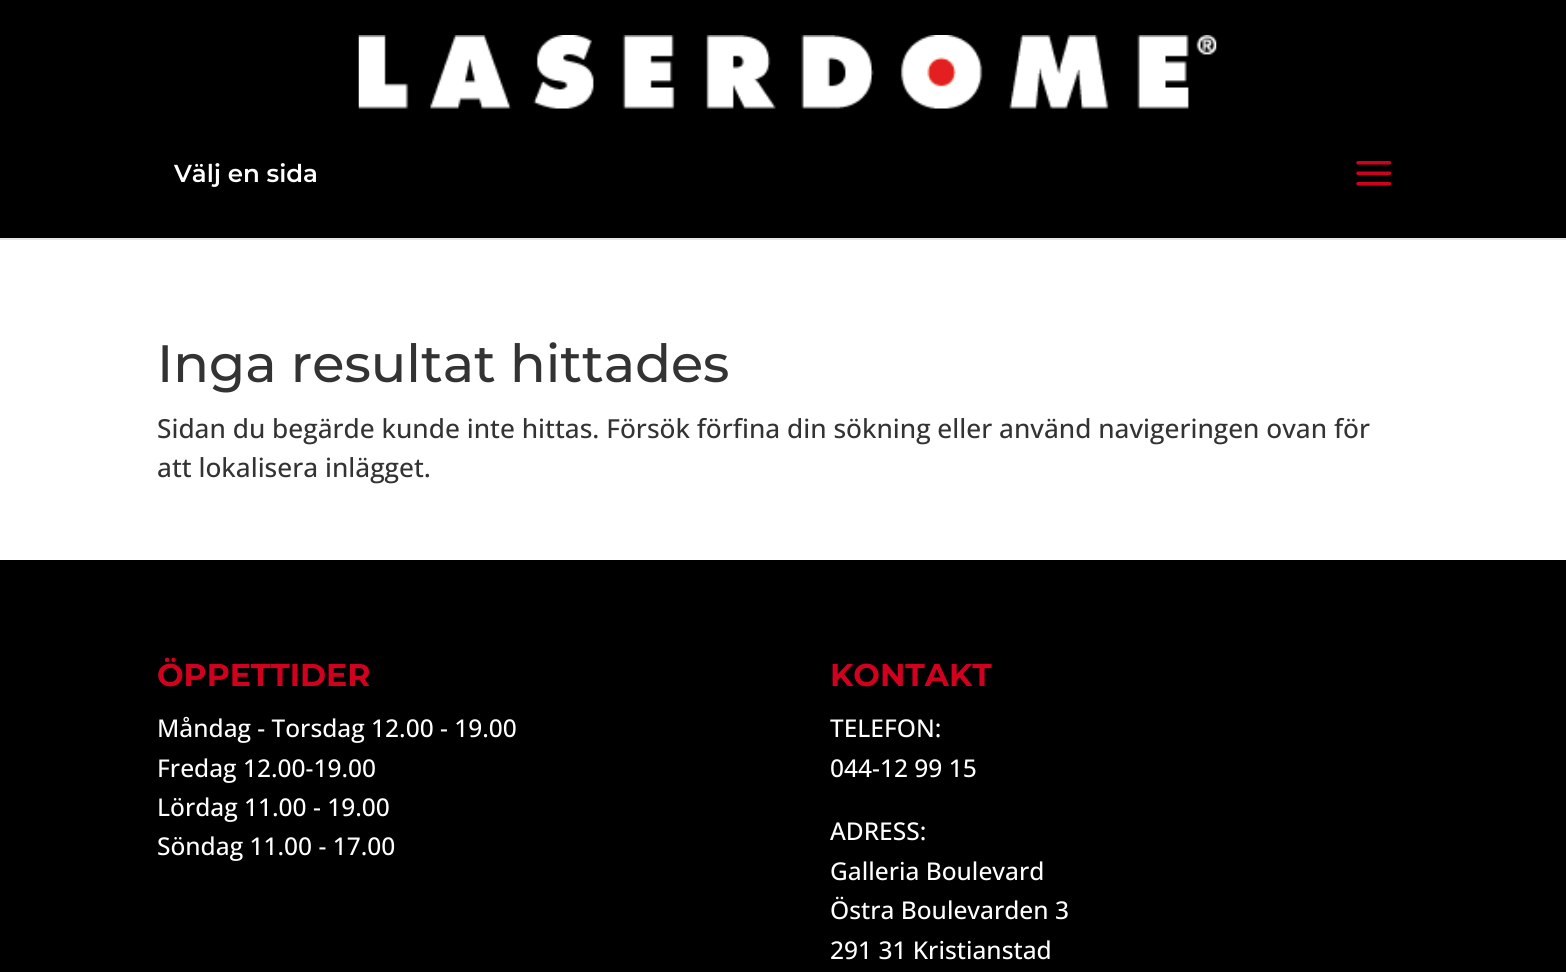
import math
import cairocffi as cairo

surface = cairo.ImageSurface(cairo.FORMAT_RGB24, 1566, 972)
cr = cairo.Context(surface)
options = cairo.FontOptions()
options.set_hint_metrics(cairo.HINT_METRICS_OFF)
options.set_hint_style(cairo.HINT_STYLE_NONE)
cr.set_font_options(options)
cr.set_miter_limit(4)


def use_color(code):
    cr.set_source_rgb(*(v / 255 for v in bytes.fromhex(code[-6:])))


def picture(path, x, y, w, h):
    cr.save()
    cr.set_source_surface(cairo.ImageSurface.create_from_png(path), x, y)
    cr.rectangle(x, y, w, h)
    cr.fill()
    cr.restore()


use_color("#ffffff")
cr.paint()
use_color("#e6e6e6")
cr.rectangle(0, 238, 1566, 2)
cr.fill()
use_color("#000000")
cr.rectangle(0, 0, 1566, 238)
cr.fill()
picture("img1.png", 358, 35, 859, 74)
cr.select_font_face("Montserrat SemiBold")
cr.set_font_size(24.5)
use_color("#ffffff")
cr.move_to(174, 182)
cr.show_text("Välj en sida")
picture("img2.png", 1356, 161, 36, 25)
cr.select_font_face("Montserrat Medium")
cr.set_font_size(52.5)
use_color("#333333")
cr.move_to(157, 382)
cr.show_text("Inga resultat hittades")
cr.select_font_face("Open Sans Medium")
cr.set_font_size(26.25)
cr.move_to(157, 438)
cr.show_text("Sidan du begärde kunde inte hittas. Försök förfina din sökning eller använd navigeringen ovan för")
cr.move_to(157, 477)
cr.show_text("att lokalisera inlägget.")
use_color("#000000")
cr.rectangle(0, 560, 1566, 412)
cr.fill()
cr.select_font_face("Montserrat", cairo.FONT_SLANT_NORMAL, cairo.FONT_WEIGHT_BOLD)
cr.set_font_size(31.5)
use_color("#d1001f")
cr.move_to(157, 686)
cr.show_text("ÖPPETTIDER")
cr.select_font_face("Open Sans Medium")
cr.set_font_size(24.5)
use_color("#ffffff")
cr.move_to(157, 737)
cr.show_text("Måndag - Torsdag 12.00 - 19.00")
cr.move_to(157, 777)
cr.show_text("Fredag 12.00-19.00")
cr.move_to(157, 816)
cr.show_text("Lördag 11.00 - 19.00")
cr.move_to(157, 855)
cr.show_text("Söndag 11.00 - 17.00")
cr.select_font_face("Montserrat", cairo.FONT_SLANT_NORMAL, cairo.FONT_WEIGHT_BOLD)
cr.set_font_size(31.5)
use_color("#d1001f")
cr.move_to(830, 686)
cr.show_text("KONTAKT")
cr.select_font_face("Open Sans Medium")
cr.set_font_size(24.5)
use_color("#ffffff")
cr.move_to(830, 737)
cr.show_text("TELEFON:")
cr.move_to(830, 777)
cr.show_text("044-12 99 15")
cr.move_to(830, 840)
cr.show_text("ADRESS:")
cr.move_to(830, 880)
cr.show_text("Galleria Boulevard")
cr.move_to(830, 919)
cr.show_text("Östra Boulevarden 3")
cr.move_to(830, 959)
cr.show_text("291 31 Kristianstad")
surface.write_to_png("result.png")
